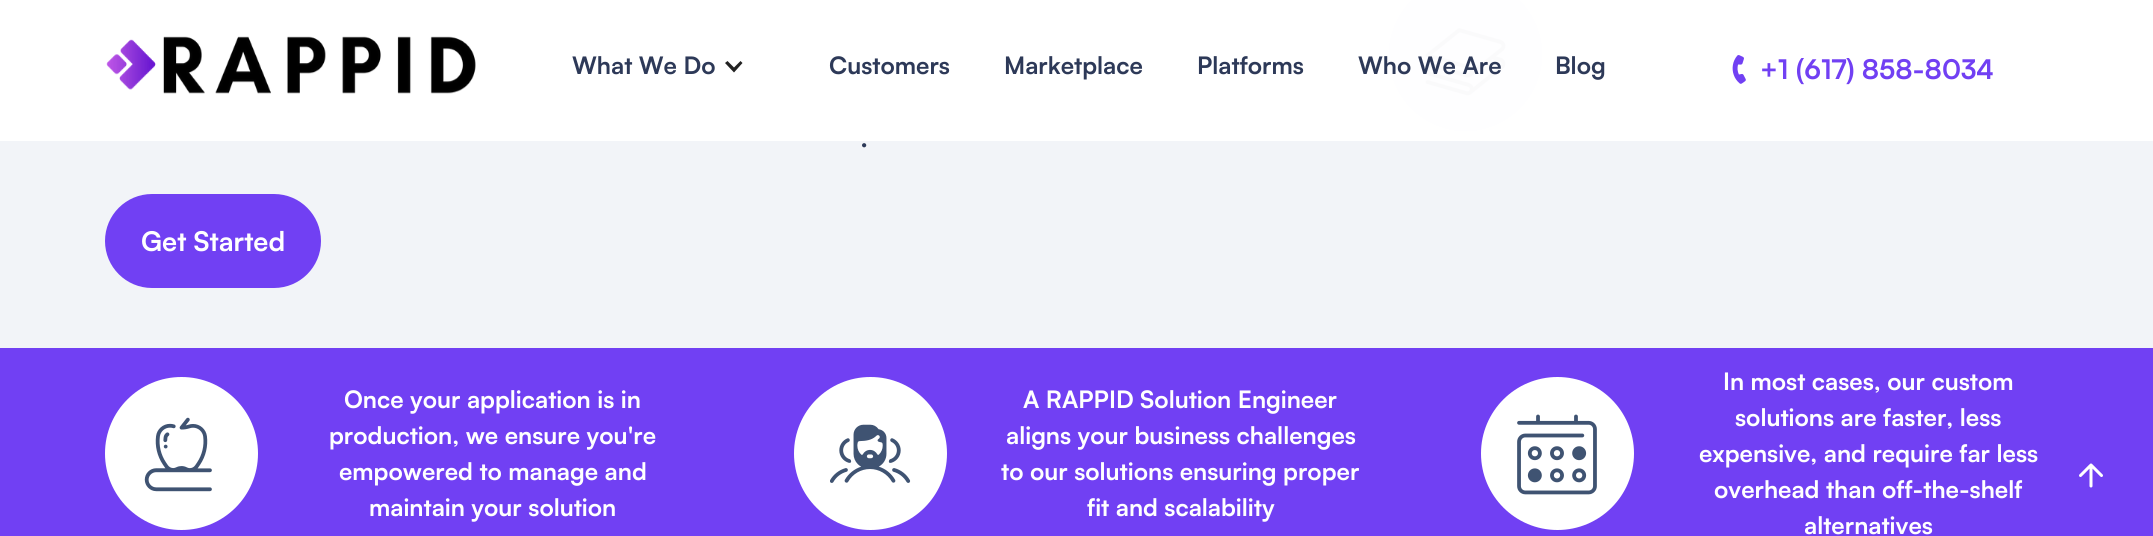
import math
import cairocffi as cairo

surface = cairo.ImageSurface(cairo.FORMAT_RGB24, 2153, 536)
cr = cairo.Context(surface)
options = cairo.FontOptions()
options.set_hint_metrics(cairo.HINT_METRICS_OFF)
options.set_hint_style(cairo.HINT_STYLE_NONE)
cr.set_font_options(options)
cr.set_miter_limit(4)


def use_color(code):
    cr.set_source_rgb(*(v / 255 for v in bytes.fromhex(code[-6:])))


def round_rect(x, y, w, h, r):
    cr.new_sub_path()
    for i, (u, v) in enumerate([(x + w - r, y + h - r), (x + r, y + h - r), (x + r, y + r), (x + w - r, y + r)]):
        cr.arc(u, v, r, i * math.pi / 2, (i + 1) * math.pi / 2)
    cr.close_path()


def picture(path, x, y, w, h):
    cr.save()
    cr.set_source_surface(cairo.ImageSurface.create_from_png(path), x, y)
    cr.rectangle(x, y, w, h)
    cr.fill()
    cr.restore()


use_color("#f2f4f8")
cr.paint()
use_color("#d3c9f7")
cr.arc(1465.5, 54.5, 76.5, 0, 2 * math.pi)
cr.fill()
picture("img3.png", 1425, 28, 81, 68)
cr.set_source_rgba(1, 1, 1, 0.97)
cr.rectangle(0, 0, 2153, 141)
cr.fill()
picture("img1.png", 106, 36, 370, 58)
cr.select_font_face("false", cairo.FONT_SLANT_NORMAL, cairo.FONT_WEIGHT_BOLD)
cr.set_font_size(24)
use_color("#2d3958")
cr.move_to(572, 74)
cr.show_text("What We Do")
use_color("#222222")
cr.new_path()
cr.move_to(740.5, 61)
cr.line_to(734, 67.5)
cr.line_to(727.5, 61)
cr.line_to(725, 63)
cr.line_to(734, 72.5)
cr.line_to(742.5, 63)
cr.close_path()
cr.fill()
use_color("#2d3958")
cr.move_to(829, 74)
cr.show_text("Customers")
cr.move_to(1004, 74)
cr.show_text("Marketplace")
cr.move_to(1197, 74)
cr.show_text("Platforms")
cr.move_to(1358, 74)
cr.show_text("Who We Are")
cr.move_to(1555, 74)
cr.show_text("Blog")
picture("img2.png", 1732, 55, 14, 29)
cr.set_font_size(27)
use_color("#7140f3")
cr.move_to(1760, 79)
cr.show_text("+1 (617) 858-8034")
cr.select_font_face("Satoshi Medium")
cr.set_font_size(30)
use_color("#2d3958")
cr.move_to(860, 147)
cr.show_text(".")
use_color("#7140f3")
round_rect(105, 194, 216, 94, 47)
cr.fill()
cr.select_font_face("false", cairo.FONT_SLANT_NORMAL, cairo.FONT_WEIGHT_BOLD)
cr.set_font_size(27)
use_color("#ffffff")
cr.move_to(141, 251)
cr.show_text("Get Started")
use_color("#7140f3")
cr.rectangle(0, 348, 2153, 188)
cr.fill()
use_color("#ffffff")
cr.arc(181.5, 453.5, 76.5, 0, 2 * math.pi)
cr.fill()
picture("img4.png", 144, 417, 68, 75)
cr.set_font_size(24)
cr.move_to(344, 408)
cr.show_text("Once your application is in")
cr.move_to(329, 444)
cr.show_text("production, we ensure you're")
cr.move_to(339, 480)
cr.show_text("empowered to manage and")
cr.move_to(369, 516)
cr.show_text("maintain your solution")
cr.new_path()
cr.arc(870.5, 453.5, 76.5, 0, 2 * math.pi)
cr.fill()
picture("img5.png", 830, 424, 81, 59)
cr.move_to(1023, 408)
cr.show_text("A RAPPID Solution Engineer")
cr.move_to(1006, 444)
cr.show_text("aligns your business challenges")
cr.move_to(1001, 480)
cr.show_text("to our solutions ensuring proper")
cr.move_to(1087, 516)
cr.show_text("fit and scalability")
cr.new_path()
cr.arc(1557.5, 453.5, 76.5, 0, 2 * math.pi)
cr.fill()
picture("img6.png", 1517, 414, 80, 81)
cr.move_to(1723, 390)
cr.show_text("In most cases, our custom")
cr.move_to(1735, 426)
cr.show_text("solutions are faster, less")
cr.move_to(1699, 462)
cr.show_text("expensive, and require far less")
cr.move_to(1714, 498)
cr.show_text("overhead than off-the-shelf")
cr.move_to(1804, 534)
cr.show_text("alternatives")
cr.new_path()
cr.move_to(2080.5, 475.5)
cr.line_to(2091, 465)
cr.line_to(2101.5, 475.5)
cr.move_to(2091, 486)
cr.line_to(2091, 466.5)
cr.close_path()
cr.set_line_width(3)
cr.set_line_cap(cairo.LINE_CAP_ROUND)
cr.set_line_join(cairo.LINE_JOIN_ROUND)
cr.stroke()
surface.write_to_png("result.png")
